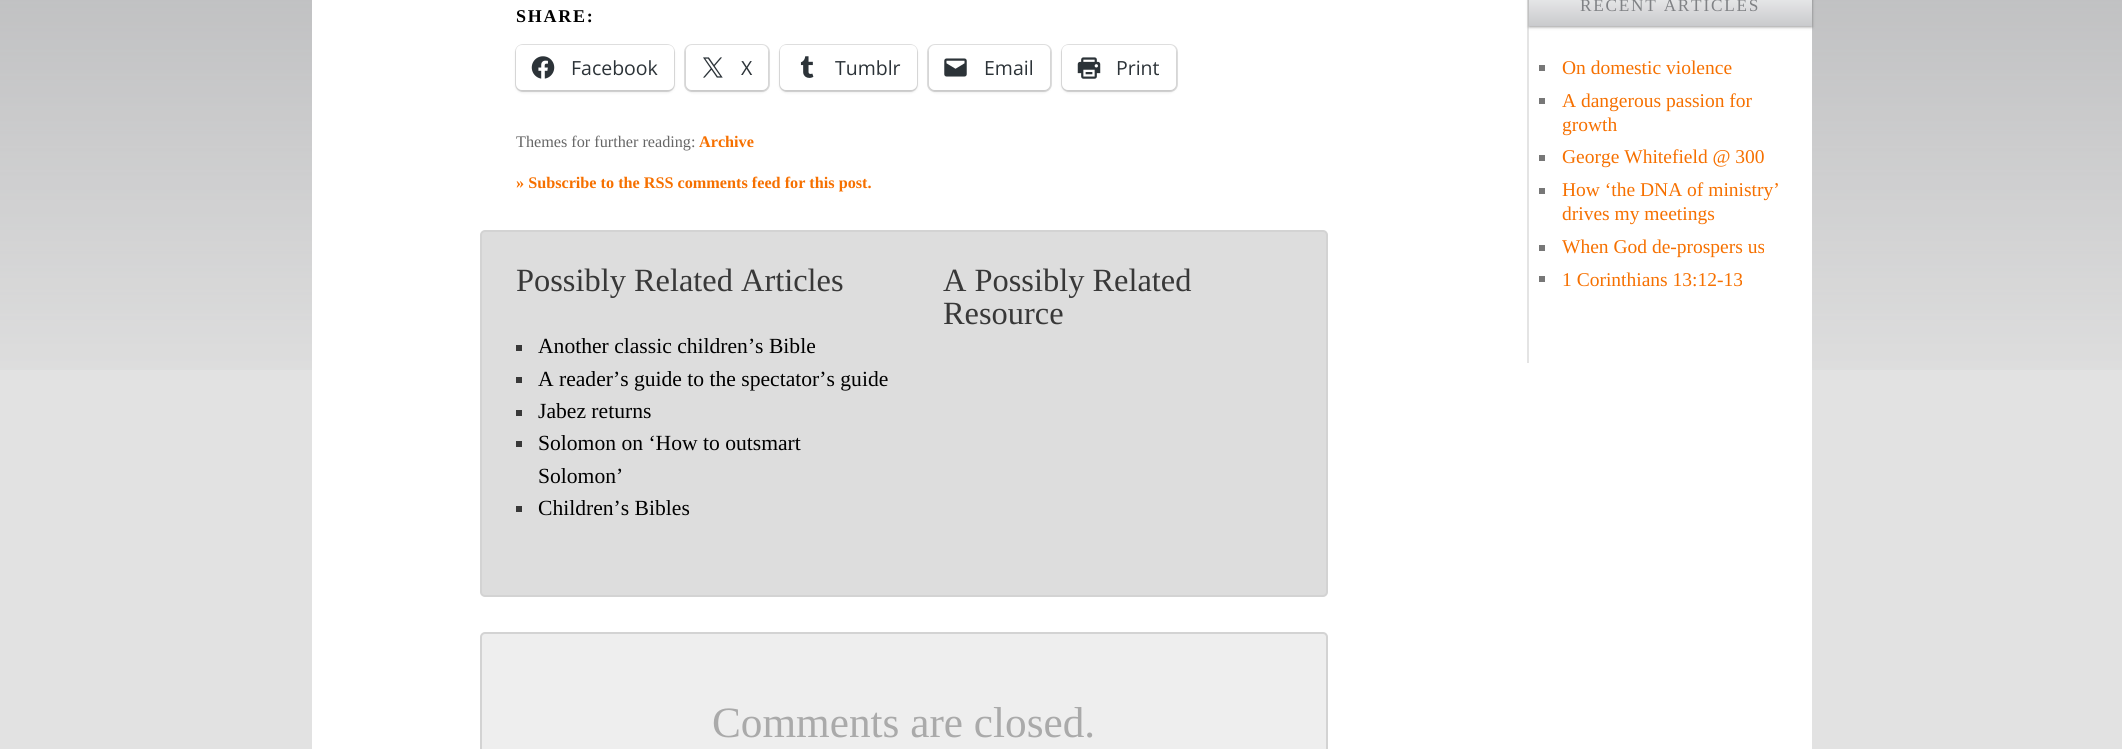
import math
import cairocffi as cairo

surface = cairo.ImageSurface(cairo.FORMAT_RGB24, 2122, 749)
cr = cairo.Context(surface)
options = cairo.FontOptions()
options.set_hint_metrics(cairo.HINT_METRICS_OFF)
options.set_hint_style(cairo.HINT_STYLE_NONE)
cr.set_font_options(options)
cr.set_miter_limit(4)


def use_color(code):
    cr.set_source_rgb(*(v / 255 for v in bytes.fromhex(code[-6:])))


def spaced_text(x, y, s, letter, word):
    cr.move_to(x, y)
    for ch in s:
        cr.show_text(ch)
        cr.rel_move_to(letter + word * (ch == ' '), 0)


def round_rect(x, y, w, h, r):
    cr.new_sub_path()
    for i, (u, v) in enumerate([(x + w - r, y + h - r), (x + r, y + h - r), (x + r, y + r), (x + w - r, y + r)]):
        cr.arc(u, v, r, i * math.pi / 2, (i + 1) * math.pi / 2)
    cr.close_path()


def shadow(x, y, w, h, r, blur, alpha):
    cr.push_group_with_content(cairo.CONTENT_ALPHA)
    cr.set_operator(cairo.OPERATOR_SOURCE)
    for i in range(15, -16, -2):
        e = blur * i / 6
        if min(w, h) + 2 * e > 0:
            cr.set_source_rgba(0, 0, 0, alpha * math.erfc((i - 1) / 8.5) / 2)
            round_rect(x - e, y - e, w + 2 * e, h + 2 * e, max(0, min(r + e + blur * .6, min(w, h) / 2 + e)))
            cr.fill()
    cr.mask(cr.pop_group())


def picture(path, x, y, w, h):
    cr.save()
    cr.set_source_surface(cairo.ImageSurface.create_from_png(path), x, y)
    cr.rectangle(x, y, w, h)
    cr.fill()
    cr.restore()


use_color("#e2e2e2")
cr.paint()
picture("img1.png", 0, 0, 2122, 370)
use_color("#ffffff")
cr.rectangle(312, 0, 1500, 749)
cr.fill()
cr.select_font_face("Liberation Serif", cairo.FONT_SLANT_NORMAL, cairo.FONT_WEIGHT_BOLD)
cr.set_font_size(18)
use_color("#000000")
spaced_text(516, 22, "SHARE:", 1.75, 0)
round_rect(516, 45, 158, 46, 7)
use_color("#e0e0e0")
cr.stroke()
use_color("#000000")
shadow(516, 47, 158, 45, 6, 1.5, 0.12)
use_color("#ffffff")
round_rect(516, 45, 158, 45, 6)
cr.fill()
picture("img2.png", 531, 56, 24, 23)
cr.select_font_face("Open Sans")
cr.set_font_size(19.5)
use_color("#2c3338")
cr.move_to(571, 75)
cr.show_text("Facebook")
round_rect(685, 45, 84, 46, 7)
use_color("#e0e0e0")
cr.stroke()
use_color("#000000")
shadow(686, 47, 82, 45, 6, 1.5, 0.12)
use_color("#ffffff")
round_rect(686, 45, 82, 45, 6)
cr.fill()
picture("img3.png", 703, 57, 20, 21)
use_color("#2c3338")
cr.move_to(741, 75)
cr.show_text("X")
round_rect(780, 45, 137, 46, 7)
use_color("#e0e0e0")
cr.stroke()
use_color("#000000")
shadow(780, 47, 137, 45, 6, 1.5, 0.12)
use_color("#ffffff")
round_rect(780, 45, 137, 45, 6)
cr.fill()
picture("img4.png", 800, 56, 14, 22)
use_color("#2c3338")
cr.move_to(835, 75)
cr.show_text("Tumblr")
round_rect(928, 45, 123, 46, 7)
use_color("#e0e0e0")
cr.stroke()
use_color("#000000")
shadow(929, 47, 121, 45, 6, 1.5, 0.12)
use_color("#ffffff")
round_rect(929, 45, 121, 45, 6)
cr.fill()
picture("img5.png", 944, 58, 23, 19)
use_color("#2c3338")
cr.move_to(984, 75)
cr.show_text("Email")
round_rect(1062, 45, 115, 46, 7)
use_color("#e0e0e0")
cr.stroke()
use_color("#000000")
shadow(1062, 47, 114, 45, 6, 1.5, 0.12)
use_color("#ffffff")
round_rect(1062, 45, 114, 45, 6)
cr.fill()
picture("img6.png", 1077, 57, 24, 22)
use_color("#2c3338")
cr.move_to(1116, 75)
cr.show_text("Print")
cr.select_font_face("Liberation Serif")
cr.set_font_size(16.2)
use_color("#666666")
cr.move_to(516, 147)
cr.show_text("Themes for further reading:")
cr.select_font_face("Liberation Serif", cairo.FONT_SLANT_NORMAL, cairo.FONT_WEIGHT_BOLD)
use_color("#f67000")
cr.move_to(699, 147)
cr.show_text("Archive")
cr.move_to(516, 188)
cr.show_text("» Subscribe to the RSS comments feed for this post.")
use_color("#dddddd")
round_rect(481, 231, 846, 365, 4)
cr.fill_preserve()
use_color("#d3d3d3")
cr.stroke()
cr.select_font_face("Liberation Serif")
cr.set_font_size(32.4)
use_color("#383838")
cr.move_to(516, 291)
cr.show_text("Possibly Related Articles")
cr.rectangle(516, 345, 6, 6)
cr.fill()
cr.set_font_size(21.6)
use_color("#000000")
cr.move_to(538, 353)
cr.show_text("Another classic children’s Bible")
use_color("#383838")
cr.rectangle(516, 377, 6, 6)
cr.fill()
use_color("#000000")
cr.move_to(538, 386)
cr.show_text("A reader’s guide to the spectator’s guide")
use_color("#383838")
cr.rectangle(516, 410, 6, 6)
cr.fill()
use_color("#000000")
cr.move_to(538, 418)
cr.show_text("Jabez returns")
use_color("#383838")
cr.rectangle(516, 441, 6, 6)
cr.fill()
use_color("#000000")
cr.move_to(538, 450)
cr.show_text("Solomon on ‘How to outsmart")
cr.move_to(538, 483)
cr.show_text("Solomon’")
use_color("#383838")
cr.rectangle(516, 506, 6, 6)
cr.fill()
use_color("#000000")
cr.move_to(538, 515)
cr.show_text("Children’s Bibles")
cr.set_font_size(32.4)
use_color("#383838")
cr.move_to(943, 291)
cr.show_text("A Possibly Related")
cr.move_to(943, 324)
cr.show_text("Resource")
use_color("#eeeeee")
round_rect(481, 633, 846, 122, 4)
cr.fill_preserve()
use_color("#d3d3d3")
cr.stroke()
cr.set_font_size(43.25)
use_color("#aaaaaa")
cr.move_to(712, 737)
cr.show_text("Comments are closed.")
use_color("#e4e4e4")
cr.rectangle(1527, 0, 2, 363)
cr.fill()
use_color("#000000")
shadow(1529, -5, 283, 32, 0, 1.5, 0.4)
gradient = cairo.LinearGradient(1670, -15, 1670, 26)
gradient.add_color_stop_rgba(0, 0.961, 0.961, 0.961, 1)
gradient.add_color_stop_rgba(1, 0.788, 0.792, 0.804, 1)
cr.set_source(gradient)
cr.rectangle(1529, 0, 283, 26)
cr.fill()
cr.set_font_size(17.25)
use_color("#808285")
spaced_text(1580, 11, "RECENT ARTICLES", 1.75, 0)
use_color("#777777")
cr.rectangle(1539, 65, 6, 6)
cr.fill()
cr.set_font_size(19.5)
use_color("#f67000")
cr.move_to(1562, 74)
cr.show_text("On domestic violence")
use_color("#777777")
cr.rectangle(1539, 98, 6, 6)
cr.fill()
use_color("#f67000")
cr.move_to(1562, 107)
cr.show_text("A dangerous passion for")
cr.move_to(1562, 131)
cr.show_text("growth")
use_color("#777777")
cr.rectangle(1539, 155, 6, 6)
cr.fill()
use_color("#f67000")
cr.move_to(1562, 163)
cr.show_text("George Whitefield @ 300")
use_color("#777777")
cr.rectangle(1539, 188, 6, 6)
cr.fill()
use_color("#f67000")
cr.move_to(1562, 196)
cr.show_text("How ‘the DNA of ministry’")
cr.move_to(1562, 220)
cr.show_text("drives my meetings")
use_color("#777777")
cr.rectangle(1539, 245, 6, 6)
cr.fill()
use_color("#f67000")
cr.move_to(1562, 253)
cr.show_text("When God de-prospers us")
use_color("#777777")
cr.rectangle(1539, 276, 6, 6)
cr.fill()
use_color("#f67000")
cr.move_to(1562, 286)
cr.show_text("1 Corinthians 13:12-13")
surface.write_to_png("result.png")
